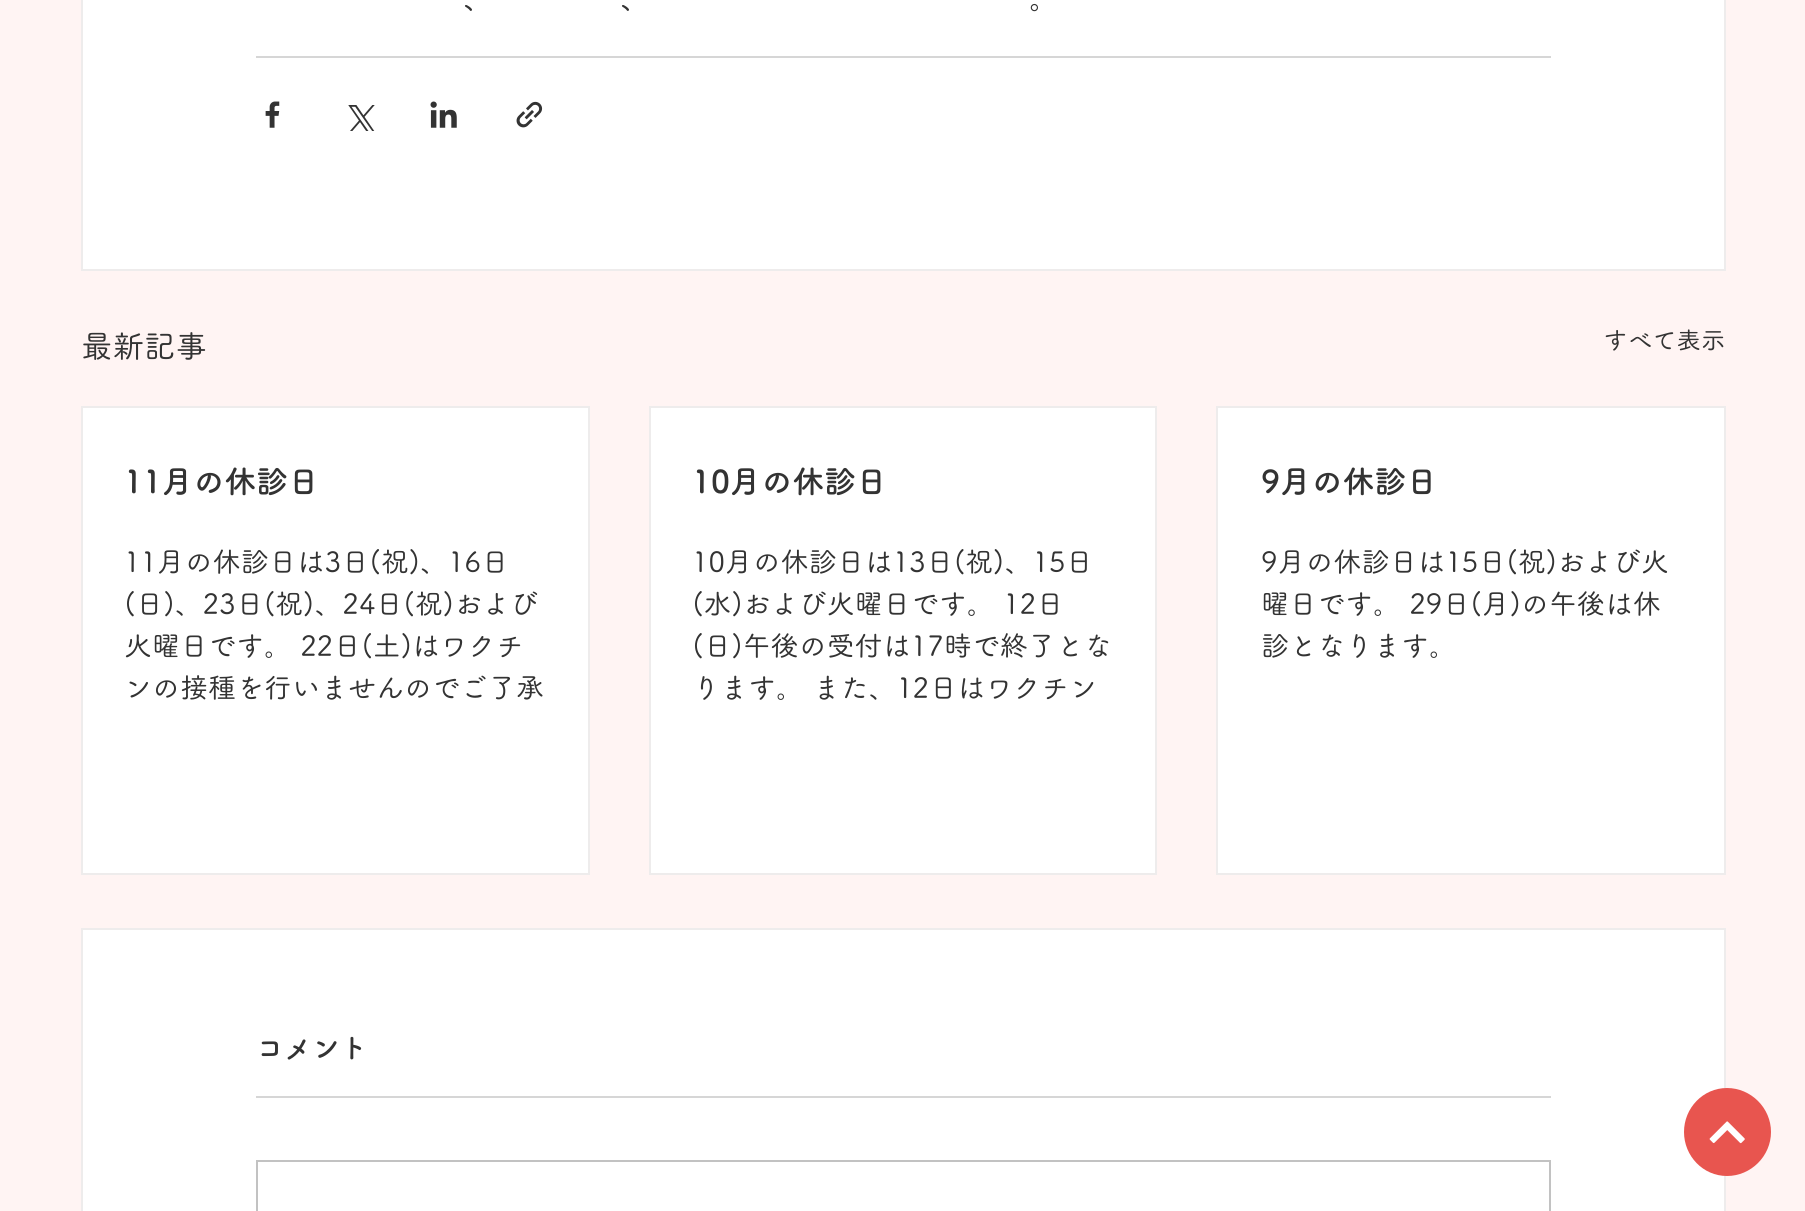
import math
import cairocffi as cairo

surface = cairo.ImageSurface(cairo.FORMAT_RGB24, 1805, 1211)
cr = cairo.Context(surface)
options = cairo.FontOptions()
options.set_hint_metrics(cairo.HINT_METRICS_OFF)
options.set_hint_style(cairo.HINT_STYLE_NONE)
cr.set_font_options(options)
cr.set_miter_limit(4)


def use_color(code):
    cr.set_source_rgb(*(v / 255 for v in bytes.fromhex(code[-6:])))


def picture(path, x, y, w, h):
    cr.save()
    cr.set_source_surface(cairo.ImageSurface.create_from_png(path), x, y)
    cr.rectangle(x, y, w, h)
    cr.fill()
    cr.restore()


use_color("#fff4f3")
cr.paint()
use_color("#ffffff")
cr.rectangle(82, -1, 1643, 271)
cr.fill_preserve()
use_color("#eeecec")
cr.stroke()
cr.select_font_face("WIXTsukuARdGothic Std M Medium")
cr.set_font_size(31.5)
use_color("#333333")
cr.move_to(463, 9)
cr.show_text("、")
cr.move_to(620, 9)
cr.show_text("、")
cr.move_to(1029, 9)
cr.show_text("。")
use_color("#d6d6d6")
cr.rectangle(256, 56, 1295, 2)
cr.fill()
picture("img1.png", 265, 101, 15, 27)
picture("img2.png", 348, 105, 27, 26)
picture("img3.png", 430, 101, 27, 27)
picture("img4.png", 516, 101, 27, 27)
use_color("#333333")
cr.move_to(81, 358)
cr.show_text("最新記事")
cr.set_font_size(24.5)
cr.move_to(1603, 349)
cr.show_text("すべて表示")
use_color("#ffffff")
cr.rectangle(82, 407, 507, 467)
cr.fill_preserve()
use_color("#eeecec")
cr.stroke()
cr.select_font_face("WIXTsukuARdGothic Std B", cairo.FONT_SLANT_NORMAL, cairo.FONT_WEIGHT_BOLD)
cr.set_font_size(31.5)
use_color("#333333")
cr.move_to(124, 493)
cr.show_text("11月の休診日")
cr.select_font_face("WIXTsukuARdGothic Std M Medium")
cr.set_font_size(28)
cr.move_to(124, 572)
cr.show_text("11月の休診日は3日(祝)、16日")
cr.move_to(124, 614)
cr.show_text("(日)、23日(祝)、24日(祝)および")
cr.move_to(124, 656)
cr.show_text("火曜日です。 22日(土)はワクチ")
cr.move_to(124, 698)
cr.show_text("ンの接種を行いませんのでご了承")
use_color("#ffffff")
cr.rectangle(650, 407, 506, 467)
cr.fill_preserve()
use_color("#eeecec")
cr.stroke()
cr.select_font_face("WIXTsukuARdGothic Std B", cairo.FONT_SLANT_NORMAL, cairo.FONT_WEIGHT_BOLD)
cr.set_font_size(31.5)
use_color("#333333")
cr.move_to(692, 493)
cr.show_text("10月の休診日")
cr.select_font_face("WIXTsukuARdGothic Std M Medium")
cr.set_font_size(28)
cr.move_to(692, 572)
cr.show_text("10月の休診日は13日(祝)、15日")
cr.move_to(692, 614)
cr.show_text("(水)および火曜日です。 12日")
cr.move_to(692, 656)
cr.show_text("(日)午後の受付は17時で終了とな")
cr.move_to(692, 698)
cr.show_text("ります。 また、12日はワクチン")
use_color("#ffffff")
cr.rectangle(1217, 407, 508, 467)
cr.fill_preserve()
use_color("#eeecec")
cr.stroke()
cr.select_font_face("WIXTsukuARdGothic Std B", cairo.FONT_SLANT_NORMAL, cairo.FONT_WEIGHT_BOLD)
cr.set_font_size(31.5)
use_color("#333333")
cr.move_to(1261, 493)
cr.show_text("9月の休診日")
cr.select_font_face("WIXTsukuARdGothic Std M Medium")
cr.set_font_size(28)
cr.move_to(1261, 572)
cr.show_text("9月の休診日は15日(祝)および火")
cr.move_to(1261, 614)
cr.show_text("曜日です。 29日(月)の午後は休")
cr.move_to(1261, 656)
cr.show_text("診となります。")
use_color("#ffffff")
cr.rectangle(82, 929, 1643, 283)
cr.fill_preserve()
use_color("#eeecec")
cr.stroke()
cr.select_font_face("WIXTsukuARdGothic Std B", cairo.FONT_SLANT_NORMAL, cairo.FONT_WEIGHT_BOLD)
use_color("#333333")
cr.move_to(256, 1058)
cr.show_text("コメント")
use_color("#d6d6d6")
cr.rectangle(256, 1096, 1295, 2)
cr.fill()
cr.rectangle(257, 1161, 1293, 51)
use_color("#c2c2c2")
cr.stroke()
use_color("#e8554f")
cr.new_path()
cr.move_to(1684, 1132)
cr.curve_to(1684, 1108, 1703, 1088, 1727, 1088)
cr.curve_to(1751, 1088, 1771, 1108, 1771, 1132)
cr.curve_to(1771, 1156, 1751, 1176, 1727, 1176)
cr.curve_to(1703, 1176, 1684, 1156, 1684, 1132)
cr.close_path()
cr.fill()
picture("img5.png", 1709, 1121, 36, 23)
surface.write_to_png("result.png")
